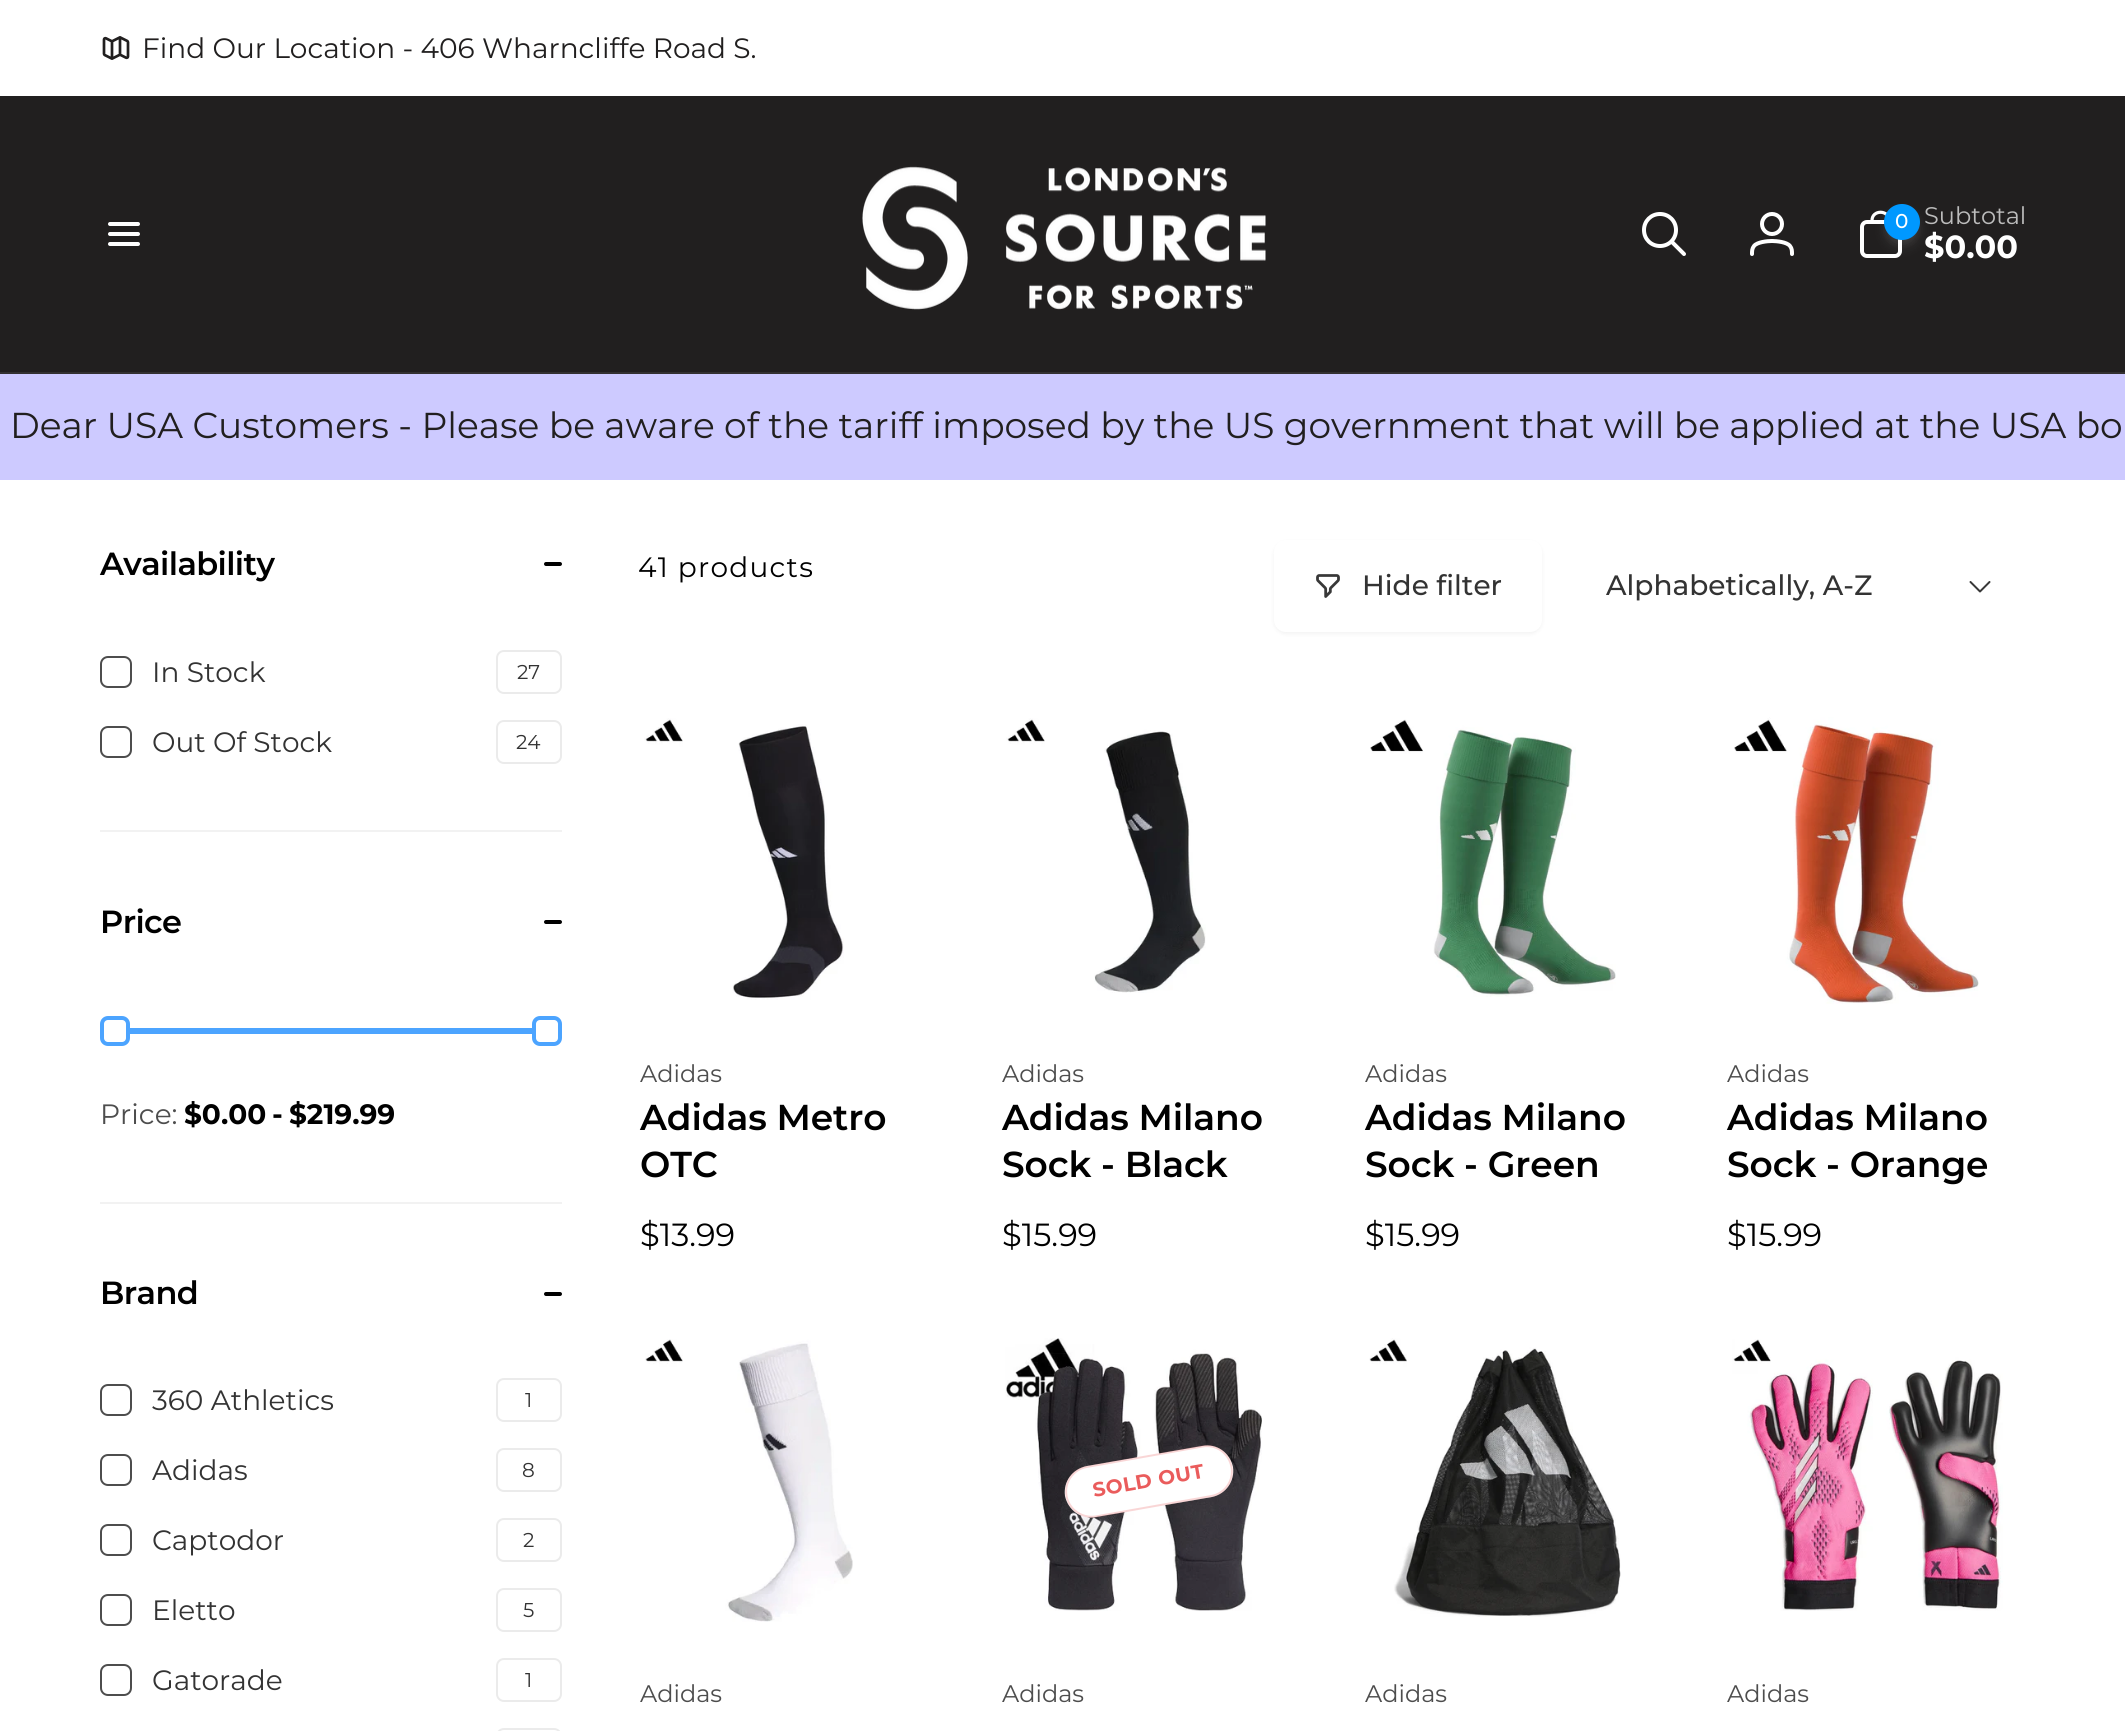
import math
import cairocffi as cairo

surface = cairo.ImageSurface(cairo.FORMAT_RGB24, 2125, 1731)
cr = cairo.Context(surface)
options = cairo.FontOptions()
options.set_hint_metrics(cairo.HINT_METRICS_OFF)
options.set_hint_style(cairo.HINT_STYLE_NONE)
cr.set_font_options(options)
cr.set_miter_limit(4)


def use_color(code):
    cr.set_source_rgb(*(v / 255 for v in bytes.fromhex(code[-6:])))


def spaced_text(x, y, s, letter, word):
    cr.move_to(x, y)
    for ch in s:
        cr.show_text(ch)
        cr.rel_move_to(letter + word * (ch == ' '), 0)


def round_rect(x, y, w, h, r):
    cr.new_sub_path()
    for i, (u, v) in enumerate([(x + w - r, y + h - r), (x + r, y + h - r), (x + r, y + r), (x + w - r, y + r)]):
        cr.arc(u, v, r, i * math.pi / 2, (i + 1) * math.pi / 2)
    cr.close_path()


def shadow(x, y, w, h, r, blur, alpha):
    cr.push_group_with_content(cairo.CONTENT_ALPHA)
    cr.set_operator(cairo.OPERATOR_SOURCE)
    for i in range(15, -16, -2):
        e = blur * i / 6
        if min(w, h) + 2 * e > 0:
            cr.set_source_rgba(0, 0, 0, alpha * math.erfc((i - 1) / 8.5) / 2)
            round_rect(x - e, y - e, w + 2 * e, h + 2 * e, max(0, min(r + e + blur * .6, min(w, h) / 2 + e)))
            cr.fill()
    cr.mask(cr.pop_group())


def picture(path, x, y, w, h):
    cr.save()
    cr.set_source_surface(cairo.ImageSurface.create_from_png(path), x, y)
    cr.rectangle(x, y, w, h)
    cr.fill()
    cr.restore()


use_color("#ffffff")
cr.paint()
use_color("#211f1f")
cr.rectangle(0, 96, 2125, 276)
cr.fill()
picture("img1.png", 102, 36, 28, 24)
cr.select_font_face("Montserrat Thin")
cr.set_font_size(28)
cr.move_to(142, 58)
cr.show_text("Find Our Location - 406 Wharncliffe Road S.")
use_color("#333131")
cr.rectangle(0, 372, 2125, 2)
cr.fill()
cr.new_path()
cr.move_to(110, 224)
cr.line_to(138, 224)
cr.move_to(110, 234)
cr.line_to(138, 234)
cr.move_to(110, 244)
cr.line_to(138, 244)
use_color("#ffffff")
cr.set_line_width(4)
cr.set_line_cap(cairo.LINE_CAP_ROUND)
cr.stroke()
picture("img2.png", 862, 166, 404, 144)
cr.new_path()
cr.move_to(1684, 254)
cr.line_to(1671.5, 241.5)
cr.move_to(1660, 246)
cr.curve_to(1669, 246, 1676, 239, 1676, 230)
cr.curve_to(1676, 221, 1669, 214, 1660, 214)
cr.curve_to(1651, 214, 1644, 221, 1644, 230)
cr.curve_to(1644, 239, 1651, 246, 1660, 246)
cr.close_path()
cr.set_line_join(cairo.LINE_JOIN_ROUND)
cr.stroke()
cr.arc(1772, 224, 10, 0, 2 * math.pi)
cr.set_line_cap(cairo.LINE_CAP_BUTT)
cr.set_line_join(cairo.LINE_JOIN_MITER)
cr.stroke()
cr.new_path()
cr.move_to(1772, 241)
cr.curve_to(1776.5, 241, 1787, 242, 1790, 246)
cr.curve_to(1792, 248.5, 1792, 251, 1792, 254)
cr.move_to(1772, 241)
cr.curve_to(1767.5, 241, 1757, 242, 1754, 246)
cr.curve_to(1752, 248.5, 1752, 251, 1752, 254)
cr.set_line_cap(cairo.LINE_CAP_ROUND)
cr.stroke()
cr.new_path()
cr.move_to(1895, 222)
cr.line_to(1867, 222)
cr.curve_to(1864, 222, 1862, 224.5, 1862, 227)
cr.line_to(1862, 251)
cr.curve_to(1862, 253.5, 1864, 256, 1867, 256)
cr.line_to(1895, 256)
cr.curve_to(1898, 256, 1900, 253.5, 1900, 251)
cr.line_to(1900, 227)
cr.curve_to(1900, 224.5, 1898, 222, 1895, 222)
cr.close_path()
cr.set_line_cap(cairo.LINE_CAP_BUTT)
cr.stroke()
cr.new_path()
cr.move_to(1872, 220.5)
cr.curve_to(1872, 209.5, 1889, 209.5, 1889, 220.5)
cr.set_line_width(3.2)
cr.set_line_cap(cairo.LINE_CAP_ROUND)
cr.set_line_join(cairo.LINE_JOIN_ROUND)
cr.stroke()
use_color("#ffffff")
shadow(1886, 210, 32, 32, 16, 4, 0.06)
shadow(1886, 214, 32, 32, 16, 6, 0.1)
use_color("#0098ff")
cr.arc(1902, 222, 18, 0, 2 * math.pi)
cr.fill()
cr.select_font_face("Montserrat Medium")
cr.set_font_size(20)
use_color("#ffffff")
cr.move_to(1895, 228)
cr.show_text("0")
cr.select_font_face("Montserrat Thin")
cr.set_font_size(24)
use_color("#bcbcbc")
cr.move_to(1924, 224)
cr.show_text("Subtotal")
cr.select_font_face("Montserrat", cairo.FONT_SLANT_NORMAL, cairo.FONT_WEIGHT_BOLD)
cr.set_font_size(32)
use_color("#ffffff")
cr.move_to(1924, 258)
cr.show_text("$0.00")
use_color("#cdcaff")
cr.rectangle(0, 374, 2125, 106)
cr.fill()
cr.select_font_face("Montserrat Thin")
cr.set_font_size(36)
use_color("#211f1f")
cr.move_to(10, 438)
cr.show_text("Dear USA Customers - Please be aware of the tariff imposed by the US government that will be applied at the USA bo")
cr.select_font_face("Montserrat SemiBold")
cr.set_font_size(32)
use_color("#000000")
spaced_text(100, 575, "Availability", -0.6, 0)
round_rect(544, 562, 18, 4, 2)
cr.fill()
round_rect(101, 657, 30, 30, 7)
use_color("#4d4d4d")
cr.set_line_width(2)
cr.set_line_cap(cairo.LINE_CAP_BUTT)
cr.set_line_join(cairo.LINE_JOIN_MITER)
cr.stroke()
cr.select_font_face("Montserrat Thin")
cr.set_font_size(28)
use_color("#333333")
cr.move_to(152, 682)
cr.show_text("In Stock")
round_rect(497, 651, 64, 42, 7)
use_color("#ebebeb")
cr.stroke()
cr.set_font_size(20)
use_color("#333333")
cr.move_to(517, 679)
cr.show_text("27")
round_rect(101, 727, 30, 30, 7)
use_color("#4d4d4d")
cr.stroke()
cr.set_font_size(28)
use_color("#333333")
cr.move_to(152, 752)
cr.show_text("Out Of Stock")
round_rect(497, 721, 64, 42, 7)
use_color("#ebebeb")
cr.stroke()
cr.set_font_size(20)
use_color("#333333")
cr.move_to(516, 749)
cr.show_text("24")
use_color("#f2f2f2")
cr.rectangle(100, 830, 462, 2)
cr.fill()
cr.select_font_face("Montserrat SemiBold")
cr.set_font_size(32)
use_color("#000000")
spaced_text(100, 933, "Price", -0.6, 0)
round_rect(544, 920, 18, 4, 2)
cr.fill()
round_rect(102, 1018, 26, 26, 6)
use_color("#4ca4ff")
cr.set_line_width(4)
cr.stroke()
cr.rectangle(130, 1028, 402, 6)
cr.fill()
round_rect(534, 1018, 26, 26, 6)
cr.stroke()
cr.select_font_face("Montserrat Thin")
cr.set_font_size(28)
use_color("#4d4d4d")
cr.move_to(100, 1124)
cr.show_text("Price:")
cr.select_font_face("Montserrat", cairo.FONT_SLANT_NORMAL, cairo.FONT_WEIGHT_BOLD)
use_color("#000000")
cr.move_to(184, 1124)
cr.show_text("$0.00")
cr.move_to(272, 1124)
cr.show_text("-")
cr.move_to(289, 1124)
cr.show_text("$219.99")
use_color("#f2f2f2")
cr.rectangle(100, 1202, 462, 2)
cr.fill()
cr.select_font_face("Montserrat SemiBold")
cr.set_font_size(32)
use_color("#000000")
spaced_text(100, 1304, "Brand", -0.6, 0)
round_rect(544, 1292, 18, 4, 2)
cr.fill()
round_rect(101, 1385, 30, 30, 7)
use_color("#4d4d4d")
cr.set_line_width(2)
cr.stroke()
cr.select_font_face("Montserrat Thin")
cr.set_font_size(28)
use_color("#333333")
cr.move_to(152, 1410)
cr.show_text("360 Athletics")
round_rect(497, 1379, 64, 42, 7)
use_color("#ebebeb")
cr.stroke()
cr.set_font_size(20)
use_color("#333333")
cr.move_to(525, 1407)
cr.show_text("1")
round_rect(101, 1455, 30, 30, 7)
use_color("#4d4d4d")
cr.stroke()
cr.set_font_size(28)
use_color("#333333")
cr.move_to(152, 1480)
cr.show_text("Adidas")
round_rect(497, 1449, 64, 42, 7)
use_color("#ebebeb")
cr.stroke()
cr.set_font_size(20)
use_color("#333333")
cr.move_to(522, 1477)
cr.show_text("8")
round_rect(101, 1525, 30, 30, 7)
use_color("#4d4d4d")
cr.stroke()
cr.set_font_size(28)
use_color("#333333")
cr.move_to(152, 1550)
cr.show_text("Captodor")
round_rect(497, 1519, 64, 42, 7)
use_color("#ebebeb")
cr.stroke()
cr.set_font_size(20)
use_color("#333333")
cr.move_to(523, 1547)
cr.show_text("2")
round_rect(101, 1595, 30, 30, 7)
use_color("#4d4d4d")
cr.stroke()
cr.set_font_size(28)
use_color("#333333")
cr.move_to(152, 1620)
cr.show_text("Eletto")
round_rect(497, 1589, 64, 42, 7)
use_color("#ebebeb")
cr.stroke()
cr.set_font_size(20)
use_color("#333333")
cr.move_to(523, 1617)
cr.show_text("5")
round_rect(101, 1665, 30, 30, 7)
use_color("#4d4d4d")
cr.stroke()
cr.set_font_size(28)
use_color("#333333")
cr.move_to(152, 1690)
cr.show_text("Gatorade")
round_rect(497, 1659, 64, 42, 7)
use_color("#ebebeb")
cr.stroke()
cr.set_font_size(20)
use_color("#333333")
cr.move_to(525, 1687)
cr.show_text("1")
round_rect(497, 1729, 64, 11, 7)
use_color("#ebebeb")
cr.stroke()
cr.set_font_size(28)
use_color("#000000")
spaced_text(638, 577, "41 products", 1.25, 0)
use_color("#000000")
shadow(1274, 542, 268, 92, 12, 2, 0.05)
use_color("#ffffff")
round_rect(1274, 540, 268, 92, 12)
cr.fill()
picture("img3.png", 1316, 574, 24, 24)
cr.select_font_face("Montserrat Medium")
use_color("#333333")
cr.move_to(1362, 595)
cr.show_text("Hide filter")
cr.move_to(1606, 595)
cr.show_text("Alphabetically, A-Z")
cr.new_path()
cr.move_to(1989.5, 582)
cr.line_to(1980, 591.5)
cr.line_to(1970.5, 582)
use_color("#383838")
cr.set_line_cap(cairo.LINE_CAP_ROUND)
cr.set_line_join(cairo.LINE_JOIN_ROUND)
cr.stroke()
picture("img4.png", 644, 718, 200, 282)
cr.select_font_face("Montserrat Thin")
cr.set_font_size(24)
use_color("#4d4d4d")
cr.move_to(640, 1082)
cr.show_text("Adidas")
cr.select_font_face("Montserrat SemiBold")
cr.set_font_size(36)
use_color("#000000")
spaced_text(640, 1130, "Adidas Metro", -0.1, 0)
spaced_text(640, 1177, "OTC", -0.1, 0)
cr.select_font_face("Montserrat Thin")
cr.set_font_size(32)
cr.move_to(640, 1246)
cr.show_text("$13.99")
picture("img5.png", 1006, 718, 200, 275)
cr.set_font_size(24)
use_color("#4d4d4d")
cr.move_to(1002, 1082)
cr.show_text("Adidas")
cr.select_font_face("Montserrat SemiBold")
cr.set_font_size(36)
use_color("#000000")
spaced_text(1002, 1130, "Adidas Milano", -0.1, 0)
spaced_text(1002, 1177, "Sock - Black", -0.1, 0)
cr.select_font_face("Montserrat Thin")
cr.set_font_size(32)
cr.move_to(1002, 1246)
cr.show_text("$15.99")
picture("img6.png", 1370, 719, 246, 278)
cr.set_font_size(24)
use_color("#4d4d4d")
cr.move_to(1365, 1082)
cr.show_text("Adidas")
cr.select_font_face("Montserrat SemiBold")
cr.set_font_size(36)
use_color("#000000")
spaced_text(1365, 1130, "Adidas Milano", -0.1, 0)
spaced_text(1365, 1177, "Sock - Green", -0.1, 0)
cr.select_font_face("Montserrat Thin")
cr.set_font_size(32)
cr.move_to(1365, 1246)
cr.show_text("$15.99")
picture("img7.png", 1734, 717, 245, 287)
cr.set_font_size(24)
use_color("#4d4d4d")
cr.move_to(1727, 1082)
cr.show_text("Adidas")
cr.select_font_face("Montserrat SemiBold")
cr.set_font_size(36)
use_color("#000000")
spaced_text(1727, 1130, "Adidas Milano", -0.1, 0)
spaced_text(1727, 1177, "Sock - Orange", -0.1, 0)
cr.select_font_face("Montserrat Thin")
cr.set_font_size(32)
cr.move_to(1727, 1246)
cr.show_text("$15.99")
picture("img8.png", 645, 1339, 208, 283)
cr.set_font_size(24)
use_color("#4d4d4d")
cr.move_to(640, 1702)
cr.show_text("Adidas")
picture("img9.png", 1005, 1338, 257, 273)
use_color("#ffffff")
cr.new_path()
cr.move_to(1087, 1466)
cr.line_to(1202, 1446)
cr.curve_to(1217, 1443, 1230, 1453, 1233, 1467)
cr.curve_to(1235, 1481, 1226, 1494, 1212, 1497)
cr.line_to(1096, 1517)
cr.curve_to(1081, 1520, 1068, 1510, 1065, 1496)
cr.curve_to(1063, 1482, 1072, 1469, 1087, 1466)
cr.close_path()
cr.fill()
cr.new_path()
cr.move_to(1086.5, 1467)
cr.line_to(1202.5, 1446.5)
cr.curve_to(1216.5, 1444, 1229, 1453.5, 1231.5, 1467)
cr.curve_to(1234, 1480.5, 1225, 1493.5, 1211.5, 1496)
cr.line_to(1095.5, 1516.5)
cr.curve_to(1082, 1518.5, 1069, 1509.5, 1066.5, 1496)
cr.curve_to(1064, 1482.5, 1073, 1469.5, 1086.5, 1467)
cr.close_path()
cr.set_source_rgba(0.918, 0.361, 0.361, 0.25)
cr.set_line_cap(cairo.LINE_CAP_BUTT)
cr.set_line_join(cairo.LINE_JOIN_MITER)
cr.stroke()
cr.select_font_face("Montserrat", cairo.FONT_SLANT_NORMAL, cairo.FONT_WEIGHT_BOLD)
cr.set_font_size(20)
use_color("#ea5c5c")
cr.save()
cr.translate(1094, 1497)
cr.rotate(-10 * math.pi / 180)
spaced_text(0, 0, "SOLD OUT", 0.5, 0)
cr.restore()
cr.select_font_face("Montserrat Thin")
cr.set_font_size(24)
use_color("#4d4d4d")
cr.move_to(1002, 1702)
cr.show_text("Adidas")
picture("img10.png", 1369, 1338, 252, 279)
cr.move_to(1365, 1702)
cr.show_text("Adidas")
picture("img11.png", 1732, 1339, 271, 272)
cr.move_to(1727, 1702)
cr.show_text("Adidas")
surface.write_to_png("result.png")
